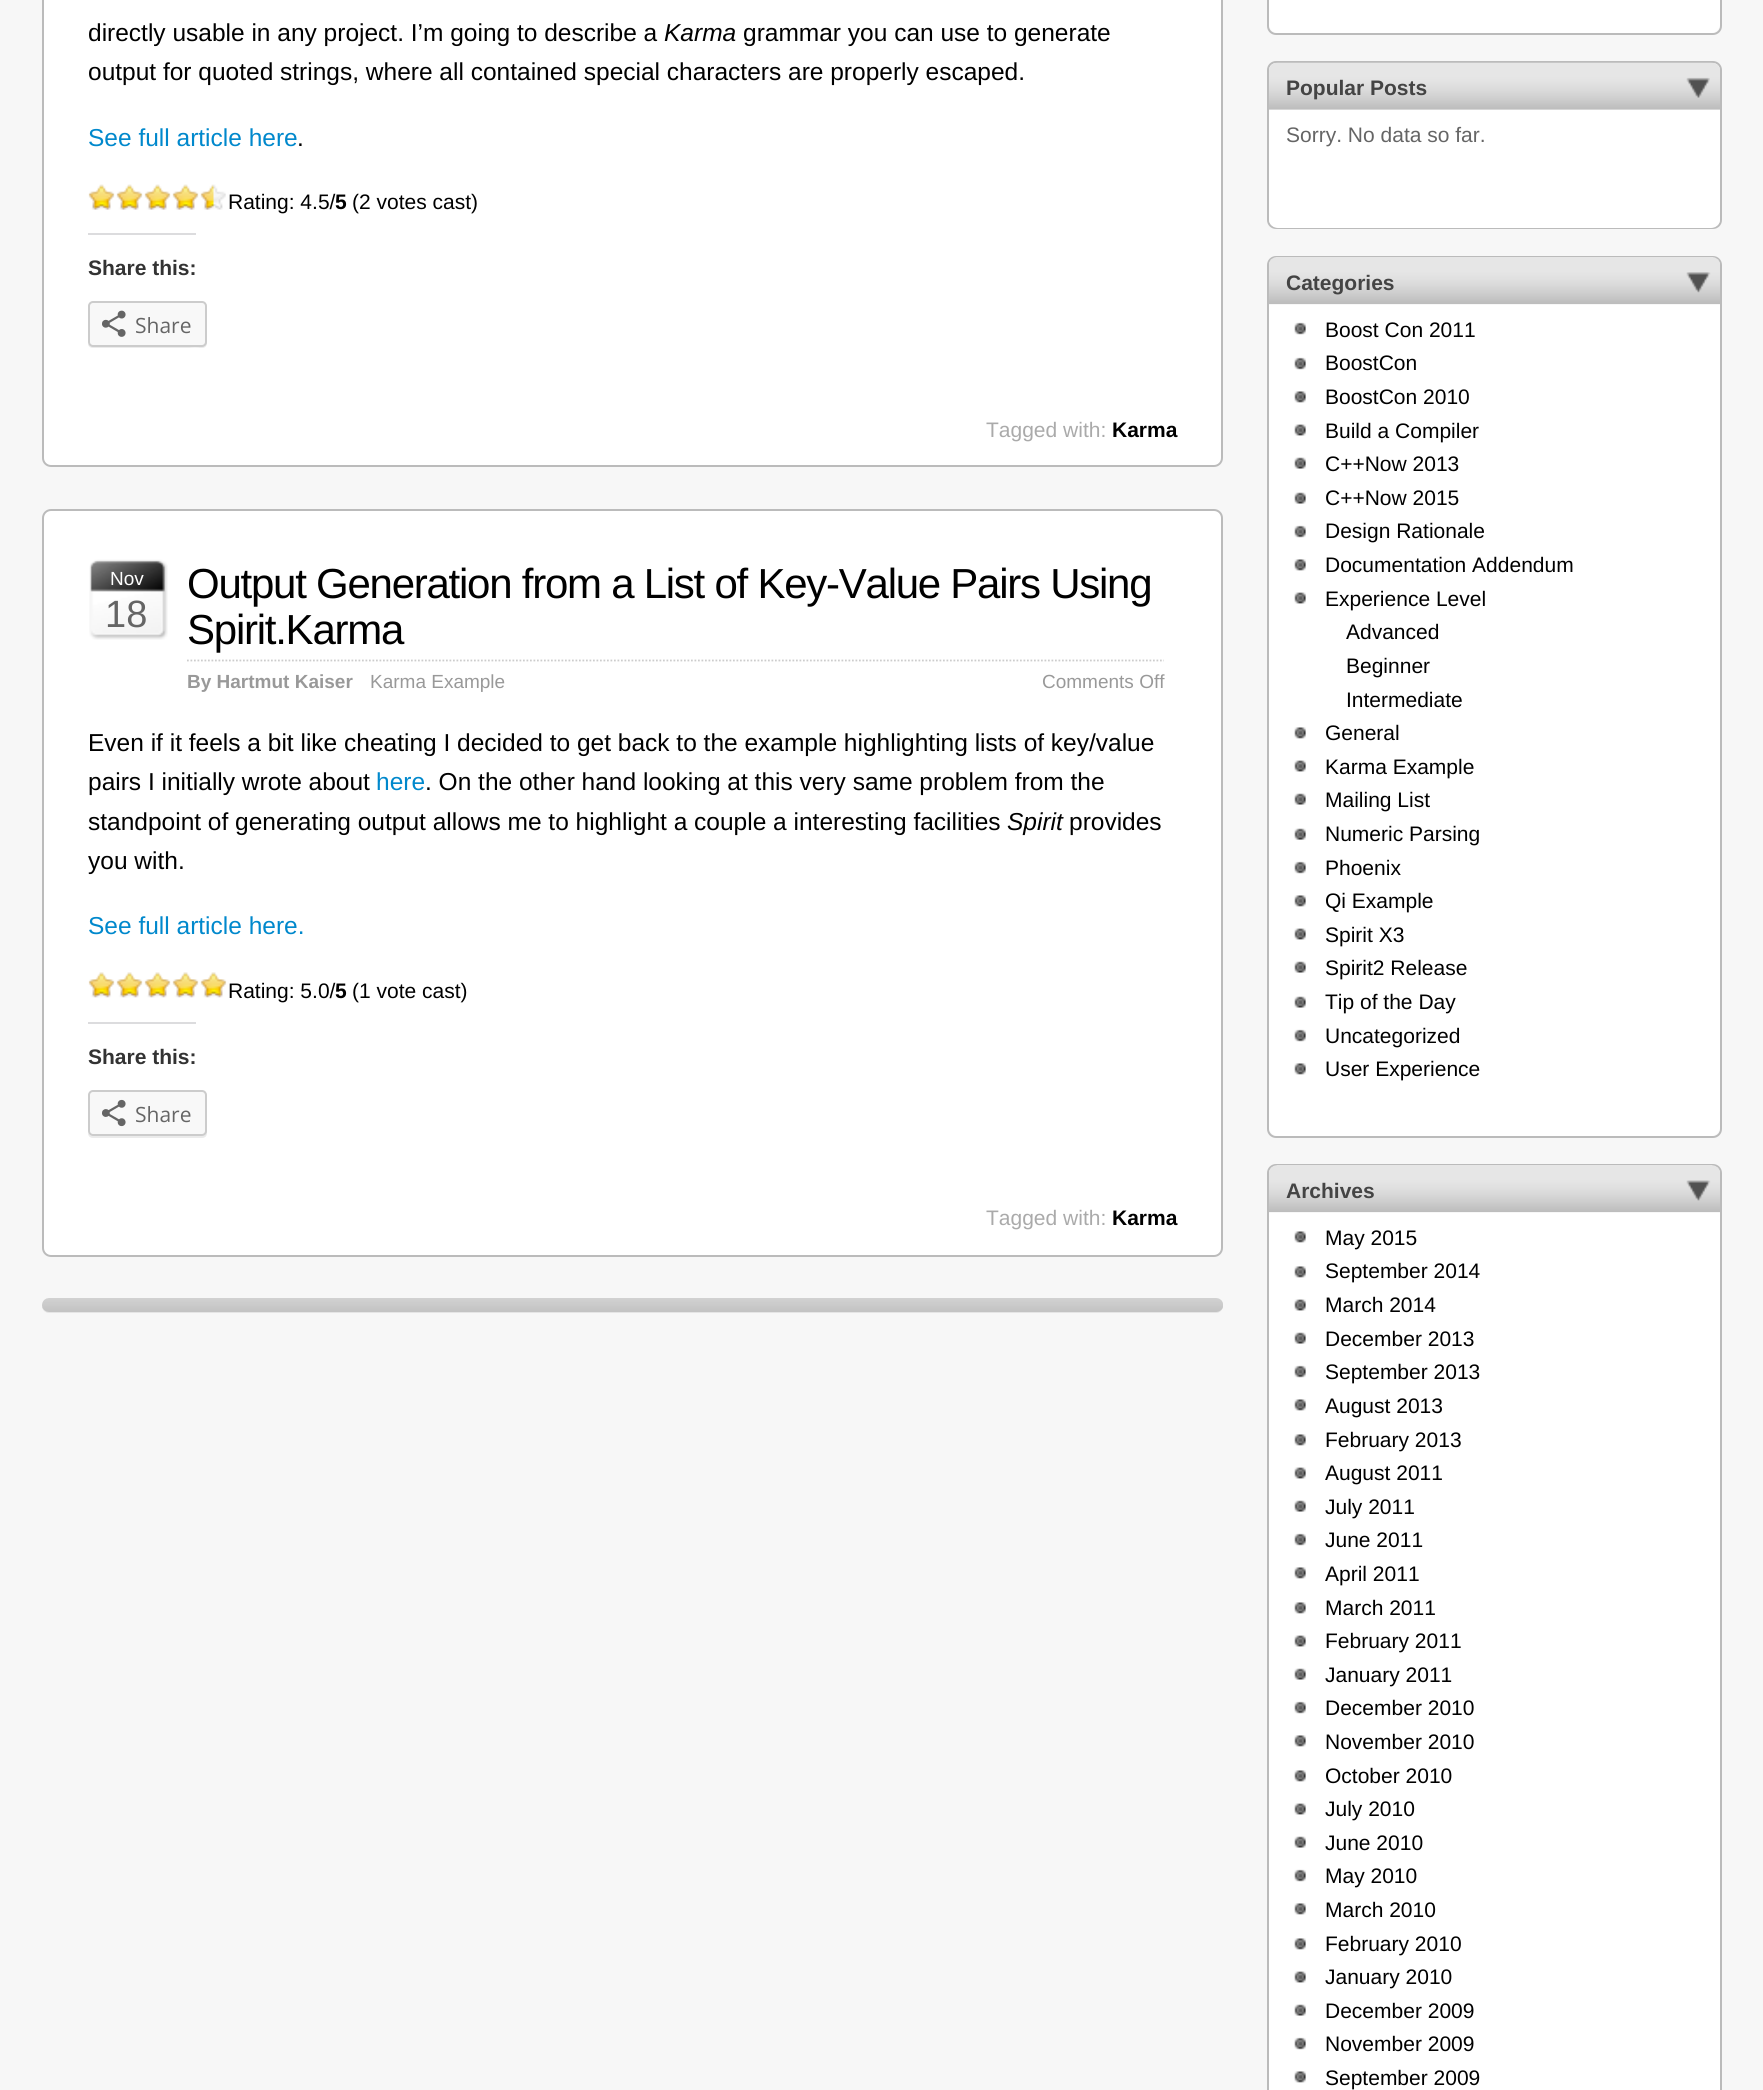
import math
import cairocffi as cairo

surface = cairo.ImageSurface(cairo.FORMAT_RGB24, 1763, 2090)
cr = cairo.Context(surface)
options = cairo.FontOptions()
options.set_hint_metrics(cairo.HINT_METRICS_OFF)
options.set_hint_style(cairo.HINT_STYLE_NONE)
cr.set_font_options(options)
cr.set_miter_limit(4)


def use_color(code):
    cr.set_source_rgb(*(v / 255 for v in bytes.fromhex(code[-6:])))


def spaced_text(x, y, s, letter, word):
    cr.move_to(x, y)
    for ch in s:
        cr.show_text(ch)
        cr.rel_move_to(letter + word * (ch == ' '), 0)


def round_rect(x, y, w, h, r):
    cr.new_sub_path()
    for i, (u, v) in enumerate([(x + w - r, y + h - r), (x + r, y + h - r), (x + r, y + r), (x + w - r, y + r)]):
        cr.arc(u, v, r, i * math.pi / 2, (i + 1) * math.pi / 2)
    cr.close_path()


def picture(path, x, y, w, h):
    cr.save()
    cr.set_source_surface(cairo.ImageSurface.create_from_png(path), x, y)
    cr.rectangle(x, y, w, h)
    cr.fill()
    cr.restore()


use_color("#f7f7f7")
cr.paint()
use_color("#ffffff")
round_rect(43, -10, 1179, 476, 8)
cr.fill_preserve()
use_color("#bbbbbb")
cr.stroke()
cr.select_font_face("Liberation Sans")
cr.set_font_size(24.5)
use_color("#000000")
cr.move_to(88, 41)
cr.show_text("directly usable in any project. I’m going to describe a")
cr.select_font_face("Liberation Sans", cairo.FONT_SLANT_ITALIC)
cr.move_to(664, 41)
cr.show_text("Karma")
cr.select_font_face("Liberation Sans")
cr.move_to(743, 41)
cr.show_text("grammar you can use to generate")
cr.move_to(88, 80)
cr.show_text("output for quoted strings, where all contained special characters are properly escaped.")
use_color("#0088cc")
cr.move_to(88, 146)
cr.show_text("See full article here")
use_color("#000000")
cr.move_to(297, 146)
cr.show_text(".")
picture("img1.png", 89, 184, 137, 26)
picture("img2.png", 88, 184, 126, 26)
cr.set_font_size(21)
cr.move_to(228, 209)
cr.show_text("Rating: 4.5/")
cr.select_font_face("Liberation Sans", cairo.FONT_SLANT_NORMAL, cairo.FONT_WEIGHT_BOLD)
cr.move_to(335, 209)
cr.show_text("5")
cr.select_font_face("Liberation Sans")
cr.move_to(352, 209)
cr.show_text("(2 votes cast)")
use_color("#dcdcde")
cr.rectangle(88, 233, 108, 2)
cr.fill()
cr.select_font_face("Liberation Sans", cairo.FONT_SLANT_NORMAL, cairo.FONT_WEIGHT_BOLD)
use_color("#333333")
cr.move_to(88, 275)
cr.show_text("Share this:")
use_color("#ebebeb")
cr.new_path()
cr.move_to(88, 344)
cr.curve_to(88, 346, 90, 348, 93, 348)
cr.line_to(202, 348)
cr.curve_to(205, 348, 207, 346, 207, 343)
cr.line_to(207, 308)
cr.line_to(206, 306)
cr.line_to(206, 342)
cr.curve_to(205, 351, 184, 346, 183, 346)
cr.line_to(93, 346)
cr.curve_to(91, 346, 89, 345, 88, 344)
cr.close_path()
cr.fill()
use_color("#f8f8f8")
round_rect(89, 302, 117, 44, 4)
cr.fill_preserve()
use_color("#cccccc")
cr.stroke()
picture("img3.png", 102, 310, 24, 27)
cr.select_font_face("Open Sans")
use_color("#656565")
cr.move_to(135, 333)
cr.show_text("Share")
cr.select_font_face("Liberation Sans")
use_color("#aaaaaa")
cr.move_to(986, 437)
cr.show_text("Tagged with:")
cr.select_font_face("Liberation Sans", cairo.FONT_SLANT_NORMAL, cairo.FONT_WEIGHT_BOLD)
use_color("#000000")
cr.move_to(1112, 437)
cr.show_text("Karma")
use_color("#ffffff")
round_rect(43, 510, 1179, 746, 8)
cr.fill_preserve()
use_color("#bbbbbb")
cr.stroke()
picture("img4.png", 89, 559, 79, 81)
cr.select_font_face("Liberation Sans")
cr.set_font_size(19)
use_color("#ffffff")
cr.move_to(110, 585)
cr.show_text("Nov")
cr.set_font_size(38)
use_color("#656565")
cr.move_to(105, 627)
cr.show_text("18")
cr.new_path()
cr.move_to(187, 660.5)
cr.line_to(1164, 660.5)
use_color("#cccccc")
cr.set_line_width(1.8)
cr.set_dash([1.75, 1.75])
cr.stroke()
cr.set_font_size(42)
use_color("#000000")
spaced_text(187, 598, "Output Generation from a List of Key-Value Pairs Using", -1.25, 0)
spaced_text(187, 644, "Spirit.Karma", -1.25, 0)
cr.select_font_face("Liberation Sans", cairo.FONT_SLANT_NORMAL, cairo.FONT_WEIGHT_BOLD)
cr.set_font_size(19)
use_color("#999999")
cr.move_to(187, 688)
cr.show_text("By Hartmut Kaiser")
cr.select_font_face("Liberation Sans")
cr.move_to(370, 688)
cr.show_text("Karma Example")
cr.move_to(1042, 688)
cr.show_text("Comments Off")
cr.set_font_size(24.5)
use_color("#000000")
cr.move_to(88, 751)
cr.show_text("Even if it feels a bit like cheating I decided to get back to the example highlighting lists of key/value")
cr.move_to(88, 790)
cr.show_text("pairs I initially wrote about")
use_color("#0088cc")
cr.move_to(376, 790)
cr.show_text("here")
use_color("#000000")
cr.move_to(425, 790)
cr.show_text(". On the other hand looking at this very same problem from the")
cr.move_to(88, 830)
cr.show_text("standpoint of generating output allows me to highlight a couple a interesting facilities")
cr.select_font_face("Liberation Sans", cairo.FONT_SLANT_ITALIC)
cr.move_to(1007, 830)
cr.show_text("Spirit")
cr.select_font_face("Liberation Sans")
cr.move_to(1069, 830)
cr.show_text("provides")
cr.move_to(88, 869)
cr.show_text("you with.")
use_color("#0088cc")
cr.move_to(88, 934)
cr.show_text("See full article here.")
picture("img5.png", 89, 972, 137, 26)
picture("img6.png", 88, 972, 139, 26)
cr.set_font_size(21)
use_color("#000000")
cr.move_to(228, 998)
cr.show_text("Rating: 5.0/")
cr.select_font_face("Liberation Sans", cairo.FONT_SLANT_NORMAL, cairo.FONT_WEIGHT_BOLD)
cr.move_to(335, 998)
cr.show_text("5")
cr.select_font_face("Liberation Sans")
cr.move_to(352, 998)
cr.show_text("(1 vote cast)")
use_color("#dcdcde")
cr.rectangle(88, 1022, 108, 2)
cr.fill()
cr.select_font_face("Liberation Sans", cairo.FONT_SLANT_NORMAL, cairo.FONT_WEIGHT_BOLD)
use_color("#333333")
cr.move_to(88, 1064)
cr.show_text("Share this:")
use_color("#ebebeb")
cr.new_path()
cr.move_to(88, 1133)
cr.curve_to(88, 1136, 90, 1138, 93, 1138)
cr.line_to(202, 1138)
cr.curve_to(205, 1138, 207, 1136, 207, 1133)
cr.line_to(207, 1097)
cr.line_to(206, 1095)
cr.line_to(206, 1119)
cr.curve_to(206, 1123, 209, 1136, 201, 1136)
cr.line_to(92, 1136)
cr.curve_to(90, 1135, 89, 1134, 88, 1133)
cr.close_path()
cr.fill()
use_color("#f8f8f8")
round_rect(89, 1091, 117, 44, 4)
cr.fill_preserve()
use_color("#cccccc")
cr.set_line_width(2)
cr.set_dash([])
cr.stroke()
picture("img7.png", 102, 1099, 24, 28)
cr.select_font_face("Open Sans")
use_color("#656565")
cr.move_to(135, 1122)
cr.show_text("Share")
cr.select_font_face("Liberation Sans")
use_color("#aaaaaa")
cr.move_to(986, 1225)
cr.show_text("Tagged with:")
cr.select_font_face("Liberation Sans", cairo.FONT_SLANT_NORMAL, cairo.FONT_WEIGHT_BOLD)
use_color("#000000")
cr.move_to(1112, 1225)
cr.show_text("Karma")
use_color("#e5e5e5")
round_rect(42, 1299, 1181, 14, 7)
cr.fill()
picture("img8.png", 42, 1298, 1181, 14)
round_rect(1268, -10, 453, 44, 8)
use_color("#bbbbbb")
cr.stroke()
use_color("#ffffff")
cr.new_path()
cr.move_to(1269, -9)
cr.line_to(1720, -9)
cr.line_to(1720, 24)
cr.curve_to(1720, 29, 1716, 33, 1711, 33)
cr.line_to(1278, 33)
cr.curve_to(1273, 33, 1269, 29, 1269, 24)
cr.close_path()
cr.fill()
round_rect(1268, 62, 453, 166, 8)
use_color("#bbbbbb")
cr.stroke()
picture("img9.png", 1269, 62, 451, 48)
use_color("#444444")
cr.move_to(1286, 95)
cr.show_text("Popular Posts")
picture("img10.png", 1686, 77, 24, 21)
use_color("#ffffff")
cr.new_path()
cr.move_to(1269, 110)
cr.line_to(1720, 110)
cr.line_to(1720, 219)
cr.curve_to(1720, 224, 1716, 228, 1711, 228)
cr.line_to(1278, 228)
cr.curve_to(1273, 228, 1269, 224, 1269, 219)
cr.close_path()
cr.fill()
cr.select_font_face("Liberation Sans")
use_color("#656565")
cr.move_to(1286, 142)
cr.show_text("Sorry. No data so far.")
round_rect(1268, 257, 453, 880, 8)
use_color("#bbbbbb")
cr.stroke()
picture("img11.png", 1269, 257, 451, 47)
cr.select_font_face("Liberation Sans", cairo.FONT_SLANT_NORMAL, cairo.FONT_WEIGHT_BOLD)
use_color("#444444")
cr.move_to(1286, 290)
cr.show_text("Categories")
picture("img12.png", 1686, 272, 25, 21)
use_color("#ffffff")
cr.new_path()
cr.move_to(1269, 305)
cr.line_to(1720, 305)
cr.line_to(1720, 1127)
cr.curve_to(1720, 1132, 1716, 1136, 1711, 1136)
cr.line_to(1278, 1136)
cr.curve_to(1273, 1136, 1269, 1132, 1269, 1127)
cr.close_path()
cr.fill()
picture("img13.png", 1294, 322, 12, 13)
cr.select_font_face("Liberation Sans")
use_color("#000000")
cr.move_to(1325, 337)
cr.show_text("Boost Con 2011")
picture("img13.png", 1294, 357, 12, 13)
cr.move_to(1325, 370)
cr.show_text("BoostCon")
picture("img14.png", 1294, 391, 12, 12)
cr.move_to(1325, 404)
cr.show_text("BoostCon 2010")
picture("img15.png", 1294, 424, 12, 12)
cr.move_to(1325, 438)
cr.show_text("Build a Compiler")
picture("img16.png", 1294, 457, 12, 12)
cr.move_to(1325, 471)
cr.show_text("C++Now 2013")
picture("img16.png", 1294, 492, 12, 12)
cr.move_to(1325, 505)
cr.show_text("C++Now 2015")
picture("img13.png", 1294, 525, 12, 13)
cr.move_to(1325, 538)
cr.show_text("Design Rationale")
picture("img14.png", 1294, 559, 12, 12)
cr.move_to(1325, 572)
cr.show_text("Documentation Addendum")
picture("img15.png", 1294, 592, 12, 12)
cr.move_to(1325, 606)
cr.show_text("Experience Level")
cr.move_to(1346, 639)
cr.show_text("Advanced")
cr.move_to(1346, 673)
cr.show_text("Beginner")
cr.move_to(1346, 707)
cr.show_text("Intermediate")
picture("img14.png", 1294, 727, 12, 12)
cr.move_to(1325, 740)
cr.show_text("General")
picture("img15.png", 1294, 760, 12, 12)
cr.move_to(1325, 774)
cr.show_text("Karma Example")
picture("img16.png", 1294, 793, 12, 12)
cr.move_to(1325, 807)
cr.show_text("Mailing List")
picture("img17.png", 1294, 828, 12, 12)
cr.move_to(1325, 841)
cr.show_text("Numeric Parsing")
picture("img13.png", 1294, 861, 12, 13)
cr.move_to(1325, 875)
cr.show_text("Phoenix")
picture("img14.png", 1294, 895, 12, 12)
cr.move_to(1325, 908)
cr.show_text("Qi Example")
picture("img15.png", 1294, 928, 12, 12)
cr.move_to(1325, 942)
cr.show_text("Spirit X3")
picture("img16.png", 1294, 961, 12, 12)
cr.move_to(1325, 975)
cr.show_text("Spirit2 Release")
picture("img16.png", 1294, 996, 12, 12)
cr.move_to(1325, 1009)
cr.show_text("Tip of the Day")
picture("img13.png", 1294, 1029, 12, 13)
cr.move_to(1325, 1043)
cr.show_text("Uncategorized")
picture("img14.png", 1294, 1063, 12, 12)
cr.move_to(1325, 1076)
cr.show_text("User Experience")
round_rect(1268, 1165, 453, 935, 8)
use_color("#bbbbbb")
cr.stroke()
picture("img18.png", 1269, 1165, 451, 47)
cr.select_font_face("Liberation Sans", cairo.FONT_SLANT_NORMAL, cairo.FONT_WEIGHT_BOLD)
use_color("#444444")
cr.move_to(1286, 1198)
cr.show_text("Archives")
picture("img19.png", 1686, 1180, 25, 21)
use_color("#ffffff")
cr.rectangle(1269, 1213, 451, 877)
cr.fill()
picture("img14.png", 1294, 1231, 12, 12)
cr.select_font_face("Liberation Sans")
use_color("#000000")
cr.move_to(1325, 1245)
cr.show_text("May 2015")
picture("img14.png", 1294, 1266, 12, 12)
cr.move_to(1325, 1278)
cr.show_text("September 2014")
picture("img15.png", 1294, 1299, 12, 12)
cr.move_to(1325, 1312)
cr.show_text("March 2014")
picture("img16.png", 1294, 1332, 12, 12)
cr.move_to(1325, 1346)
cr.show_text("December 2013")
picture("img13.png", 1294, 1365, 12, 13)
cr.move_to(1325, 1379)
cr.show_text("September 2013")
picture("img14.png", 1294, 1399, 12, 12)
cr.move_to(1325, 1413)
cr.show_text("August 2013")
picture("img14.png", 1294, 1434, 12, 12)
cr.move_to(1325, 1447)
cr.show_text("February 2013")
picture("img15.png", 1294, 1467, 12, 12)
cr.move_to(1325, 1480)
cr.show_text("August 2011")
picture("img16.png", 1294, 1500, 12, 12)
cr.move_to(1325, 1514)
cr.show_text("July 2011")
picture("img13.png", 1294, 1533, 12, 13)
cr.move_to(1325, 1547)
cr.show_text("June 2011")
picture("img14.png", 1294, 1567, 12, 12)
cr.move_to(1325, 1581)
cr.show_text("April 2011")
picture("img14.png", 1294, 1602, 12, 12)
cr.move_to(1325, 1615)
cr.show_text("March 2011")
picture("img15.png", 1294, 1635, 12, 12)
cr.move_to(1325, 1648)
cr.show_text("February 2011")
picture("img16.png", 1294, 1668, 12, 12)
cr.move_to(1325, 1682)
cr.show_text("January 2011")
picture("img13.png", 1294, 1701, 12, 13)
cr.move_to(1325, 1715)
cr.show_text("December 2010")
picture("img14.png", 1294, 1735, 12, 12)
cr.move_to(1325, 1749)
cr.show_text("November 2010")
picture("img14.png", 1294, 1770, 12, 12)
cr.move_to(1325, 1783)
cr.show_text("October 2010")
picture("img15.png", 1294, 1803, 12, 12)
cr.move_to(1325, 1816)
cr.show_text("July 2010")
picture("img16.png", 1294, 1836, 12, 12)
cr.move_to(1325, 1850)
cr.show_text("June 2010")
picture("img13.png", 1294, 1869, 12, 13)
cr.move_to(1325, 1883)
cr.show_text("May 2010")
picture("img14.png", 1294, 1903, 12, 12)
cr.move_to(1325, 1917)
cr.show_text("March 2010")
picture("img14.png", 1294, 1938, 12, 12)
cr.move_to(1325, 1951)
cr.show_text("February 2010")
picture("img15.png", 1294, 1971, 12, 12)
cr.move_to(1325, 1984)
cr.show_text("January 2010")
picture("img16.png", 1294, 2004, 12, 12)
cr.move_to(1325, 2018)
cr.show_text("December 2009")
picture("img13.png", 1294, 2037, 12, 13)
cr.move_to(1325, 2051)
cr.show_text("November 2009")
picture("img14.png", 1294, 2071, 12, 12)
cr.move_to(1325, 2085)
cr.show_text("September 2009")
surface.write_to_png("result.png")
